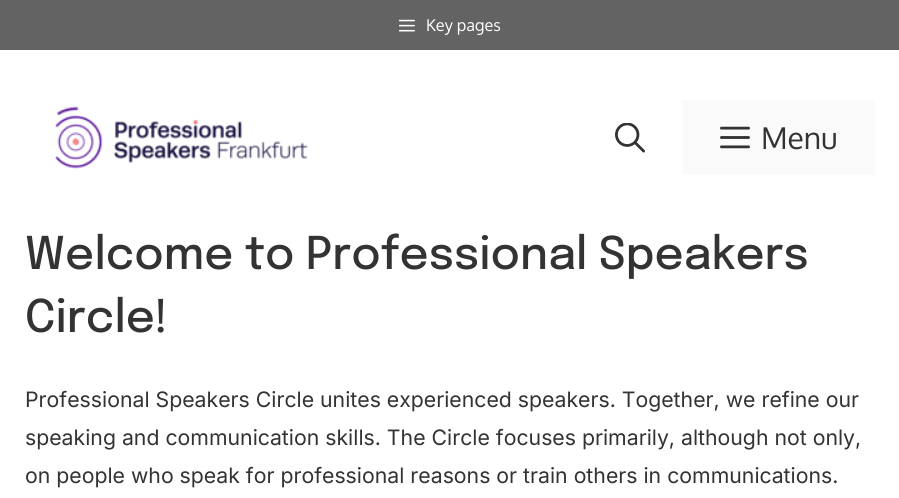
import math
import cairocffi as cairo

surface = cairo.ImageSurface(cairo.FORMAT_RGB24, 899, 498)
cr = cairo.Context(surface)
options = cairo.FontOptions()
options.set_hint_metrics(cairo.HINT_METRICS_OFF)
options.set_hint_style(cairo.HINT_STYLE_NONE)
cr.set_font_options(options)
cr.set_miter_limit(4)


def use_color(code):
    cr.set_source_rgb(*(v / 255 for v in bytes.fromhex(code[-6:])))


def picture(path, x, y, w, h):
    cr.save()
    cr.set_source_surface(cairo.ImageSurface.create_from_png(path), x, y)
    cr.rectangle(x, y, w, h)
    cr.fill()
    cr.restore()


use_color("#ffffff")
cr.paint()
use_color("#636363")
cr.rectangle(0, 0, 899, 50)
cr.fill()
picture("img1.png", 399, 19, 16, 13)
cr.select_font_face("Oxygen")
cr.set_font_size(16.25)
use_color("#ffffff")
cr.move_to(426, 31)
cr.show_text("Key pages")
picture("img2.png", 55, 106, 253, 63)
picture("img3.png", 615, 123, 30, 30)
use_color("#fafafa")
cr.rectangle(683, 100, 192, 75)
cr.fill()
picture("img4.png", 720, 126, 30, 23)
cr.set_font_size(30)
use_color("#333333")
cr.move_to(761, 149)
cr.show_text("Menu")
cr.select_font_face("Epilogue Medium")
cr.set_font_size(45)
cr.move_to(25, 269)
cr.show_text("Welcome to Professional Speakers")
cr.move_to(25, 332)
cr.show_text("Circle!")
cr.select_font_face("Inter")
cr.set_font_size(21.25)
cr.move_to(25, 407)
cr.show_text("Professional Speakers Circle unites experienced speakers. Together, we refine our")
cr.move_to(25, 445)
cr.show_text("speaking and communication skills. The Circle focuses primarily, although not only,")
cr.move_to(25, 483)
cr.show_text("on people who speak for professional reasons or train others in communications.")
surface.write_to_png("result.png")
